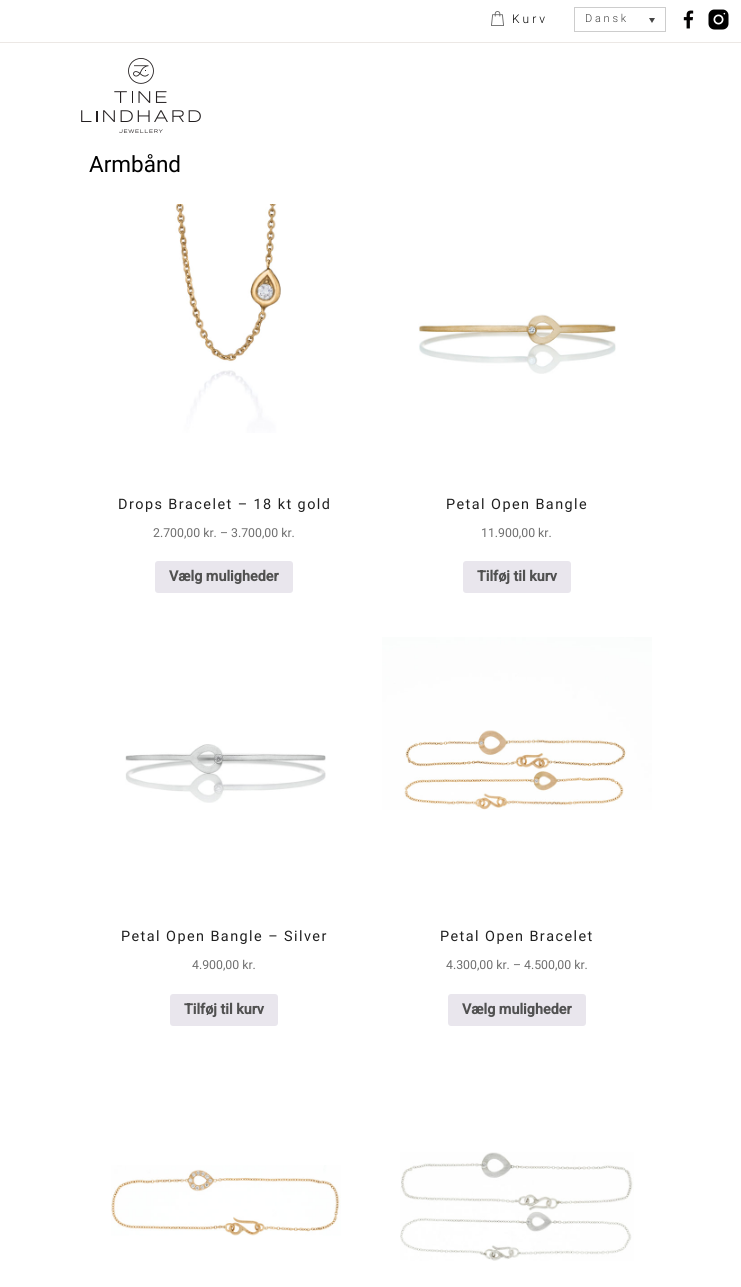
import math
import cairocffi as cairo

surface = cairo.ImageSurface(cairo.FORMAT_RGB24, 741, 1287)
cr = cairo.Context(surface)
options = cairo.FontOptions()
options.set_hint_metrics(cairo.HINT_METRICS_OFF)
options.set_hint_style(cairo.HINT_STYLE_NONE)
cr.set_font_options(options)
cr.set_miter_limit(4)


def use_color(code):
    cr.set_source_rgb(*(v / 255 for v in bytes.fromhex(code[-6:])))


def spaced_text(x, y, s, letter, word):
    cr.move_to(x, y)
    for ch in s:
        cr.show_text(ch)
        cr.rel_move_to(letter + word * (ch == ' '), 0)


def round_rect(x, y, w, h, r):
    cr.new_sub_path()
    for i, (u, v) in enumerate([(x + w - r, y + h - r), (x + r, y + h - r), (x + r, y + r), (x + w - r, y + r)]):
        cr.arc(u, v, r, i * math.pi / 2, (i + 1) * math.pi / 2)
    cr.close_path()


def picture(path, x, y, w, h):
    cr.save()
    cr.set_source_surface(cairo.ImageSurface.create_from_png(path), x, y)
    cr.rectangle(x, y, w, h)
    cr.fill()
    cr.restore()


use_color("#ffffff")
cr.paint()
picture("img1.png", 491, 11, 13, 15)
cr.select_font_face("Roboto Light")
cr.set_font_size(12)
use_color("#000000")
spaced_text(512, 23, "Kurv", 3, 0)
cr.rectangle(574.5, 7.5, 91, 24)
use_color("#cdcdcd")
cr.set_line_width(1)
cr.stroke()
cr.set_font_size(11)
use_color("#444444")
spaced_text(585, 22, "Dansk", 2.75, 0)
cr.new_path()
cr.move_to(649, 18)
cr.line_to(655, 18)
cr.line_to(652, 23)
cr.close_path()
cr.fill()
picture("img2.png", 683, 10, 11, 19)
picture("img3.png", 708, 9, 21, 21)
picture("img4.png", 81, 58, 120, 75)
use_color("#ece8e5")
cr.rectangle(0, 42, 741, 1)
cr.fill()
cr.select_font_face("Roboto")
cr.set_font_size(22.5)
use_color("#000000")
cr.move_to(89, 172)
cr.show_text("Armbånd")
picture("img5.png", 175, 204, 106, 229)
cr.set_font_size(14.4)
use_color("#202020")
spaced_text(118, 509, "Drops Bracelet – 18 kt gold", 1.45, 0)
cr.set_font_size(12.3)
use_color("#6f6f6f")
cr.move_to(153, 537)
cr.show_text("2.700,00 kr. – 3.700,00 kr.")
use_color("#e9e6ed")
round_rect(155, 561, 138, 32, 3)
cr.fill()
cr.select_font_face("Roboto", cairo.FONT_SLANT_NORMAL, cairo.FONT_WEIGHT_BOLD)
cr.set_font_size(14.4)
use_color("#515151")
cr.move_to(169, 581)
cr.show_text("Vælg muligheder")
picture("img6.png", 418, 314, 198, 60)
cr.select_font_face("Roboto")
use_color("#202020")
spaced_text(446, 509, "Petal Open Bangle", 1.45, 0)
cr.set_font_size(12.3)
use_color("#6f6f6f")
cr.move_to(481, 537)
cr.show_text("11.900,00 kr.")
use_color("#e9e6ed")
round_rect(463, 561, 108, 32, 3)
cr.fill()
cr.select_font_face("Roboto", cairo.FONT_SLANT_NORMAL, cairo.FONT_WEIGHT_BOLD)
cr.set_font_size(14.4)
use_color("#515151")
cr.move_to(477, 581)
cr.show_text("Tilføj til kurv")
picture("img7.png", 125, 744, 201, 59)
cr.select_font_face("Roboto")
use_color("#202020")
spaced_text(121, 941, "Petal Open Bangle – Silver", 1.45, 0)
cr.set_font_size(12.3)
use_color("#6f6f6f")
cr.move_to(192, 969)
cr.show_text("4.900,00 kr.")
use_color("#e9e6ed")
round_rect(170, 994, 108, 32, 3)
cr.fill()
cr.select_font_face("Roboto", cairo.FONT_SLANT_NORMAL, cairo.FONT_WEIGHT_BOLD)
cr.set_font_size(14.4)
use_color("#515151")
cr.move_to(184, 1014)
cr.show_text("Tilføj til kurv")
picture("img8.png", 382, 637, 270, 173)
cr.select_font_face("Roboto")
use_color("#202020")
spaced_text(440, 941, "Petal Open Bracelet", 1.45, 0)
cr.set_font_size(12.3)
use_color("#6f6f6f")
cr.move_to(446, 969)
cr.show_text("4.300,00 kr. – 4.500,00 kr.")
use_color("#e9e6ed")
round_rect(448, 994, 138, 32, 3)
cr.fill()
cr.select_font_face("Roboto", cairo.FONT_SLANT_NORMAL, cairo.FONT_WEIGHT_BOLD)
cr.set_font_size(14.4)
use_color("#515151")
cr.move_to(462, 1014)
cr.show_text("Vælg muligheder")
picture("img9.png", 111, 1165, 230, 71)
picture("img10.png", 400, 1152, 234, 109)
surface.write_to_png("result.png")
